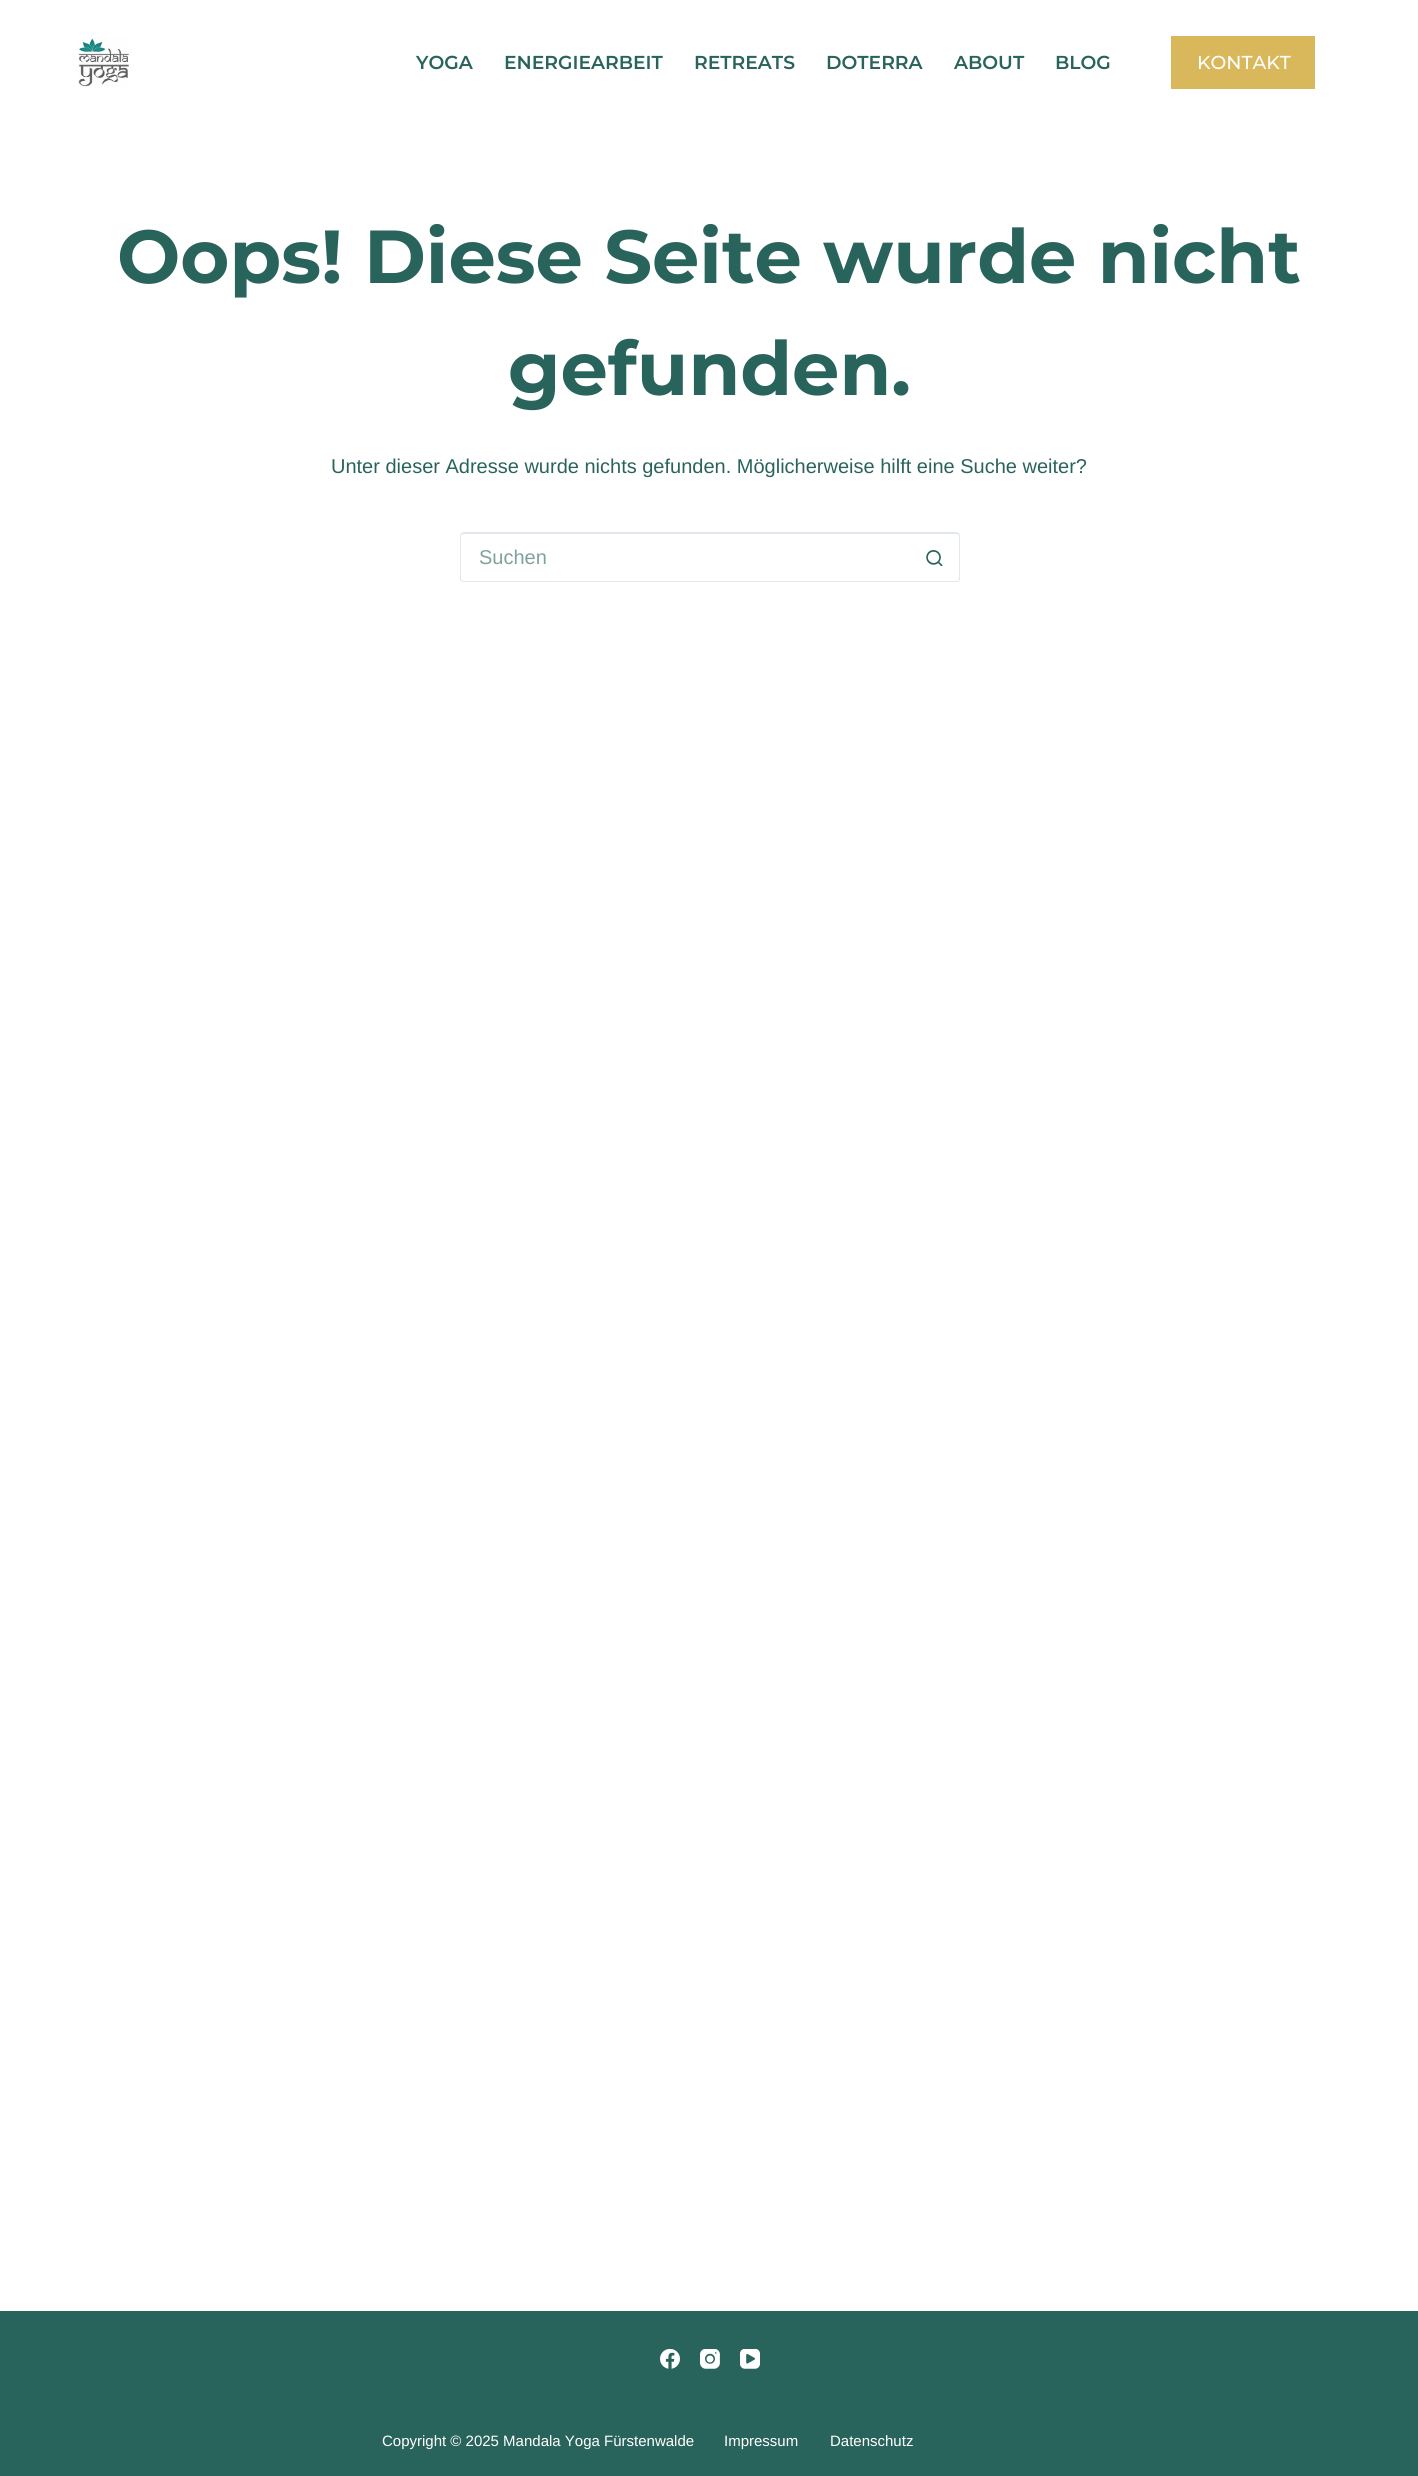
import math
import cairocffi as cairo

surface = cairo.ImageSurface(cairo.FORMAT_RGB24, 1418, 2476)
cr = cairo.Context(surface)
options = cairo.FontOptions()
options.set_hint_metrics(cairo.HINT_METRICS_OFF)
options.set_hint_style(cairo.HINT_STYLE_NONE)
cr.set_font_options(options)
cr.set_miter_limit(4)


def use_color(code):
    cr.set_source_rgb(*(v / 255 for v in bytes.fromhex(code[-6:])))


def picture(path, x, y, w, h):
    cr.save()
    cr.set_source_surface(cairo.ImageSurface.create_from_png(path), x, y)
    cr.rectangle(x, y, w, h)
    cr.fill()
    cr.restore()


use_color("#ffffff")
cr.paint()
picture("img1.png", 78, 38, 51, 49)
cr.select_font_face("Montserrat SemiBold")
cr.set_font_size(18.75)
use_color("#29645c")
cr.move_to(416, 69)
cr.show_text("YOGA")
cr.move_to(504, 69)
cr.show_text("ENERGIEARBEIT")
cr.move_to(694, 69)
cr.show_text("RETREATS")
cr.move_to(826, 69)
cr.show_text("DOTERRA")
cr.move_to(954, 69)
cr.show_text("ABOUT")
cr.move_to(1055, 69)
cr.show_text("BLOG")
use_color("#d9b75b")
cr.rectangle(1171, 36, 144, 53)
cr.fill()
cr.select_font_face("Montserrat Medium")
use_color("#ffffff")
cr.move_to(1197, 69)
cr.show_text("KONTAKT")
cr.select_font_face("Montserrat", cairo.FONT_SLANT_NORMAL, cairo.FONT_WEIGHT_BOLD)
cr.set_font_size(75)
use_color("#29645c")
cr.move_to(117, 283)
cr.show_text("Oops! Diese Seite wurde nicht")
cr.move_to(508, 395)
cr.show_text("gefunden.")
cr.select_font_face("Liberation Sans")
cr.set_font_size(20)
cr.move_to(331, 473)
cr.show_text("Unter dieser Adresse wurde nichts gefunden. Möglicherweise hilft eine Suche weiter?")
use_color("#e2e7ed")
cr.set_fill_rule(cairo.FILL_RULE_EVEN_ODD)
cr.new_path()
cr.move_to(464, 532)
cr.line_to(910, 532)
cr.line_to(910, 582)
cr.line_to(464, 582)
cr.curve_to(462, 582, 460, 581, 460, 579)
cr.line_to(460, 536)
cr.curve_to(460, 534, 462, 532, 464, 532)
cr.close_path()
cr.move_to(464, 534)
cr.line_to(910, 534)
cr.line_to(910, 581)
cr.line_to(464, 581)
cr.curve_to(462, 581, 461, 580, 461, 579)
cr.line_to(461, 536)
cr.curve_to(461, 535, 462, 534, 464, 534)
cr.close_path()
cr.fill()
use_color("#7fa29d")
cr.move_to(479, 564)
cr.show_text("Suchen")
use_color("#e2e7ed")
cr.new_path()
cr.move_to(910, 532)
cr.line_to(956, 532)
cr.curve_to(958, 532, 960, 534, 960, 536)
cr.line_to(960, 579)
cr.curve_to(960, 581, 958, 582, 956, 582)
cr.line_to(910, 582)
cr.close_path()
cr.move_to(910, 534)
cr.line_to(956, 534)
cr.curve_to(958, 534, 959, 535, 959, 536)
cr.line_to(959, 579)
cr.curve_to(959, 580, 958, 581, 956, 581)
cr.line_to(910, 581)
cr.close_path()
cr.fill()
picture("img2.png", 926, 550, 17, 16)
use_color("#29645c")
cr.rectangle(0, 2311, 1418, 165)
cr.fill()
picture("img3.png", 660, 2349, 20, 20)
picture("img4.png", 700, 2349, 20, 20)
picture("img5.png", 740, 2349, 20, 20)
cr.set_font_size(15)
use_color("#ffffff")
cr.move_to(382, 2446)
cr.show_text("Copyright © 2025 Mandala Yoga Fürstenwalde")
cr.move_to(724, 2446)
cr.show_text("Impressum")
cr.move_to(830, 2446)
cr.show_text("Datenschutz")
surface.write_to_png("result.png")
